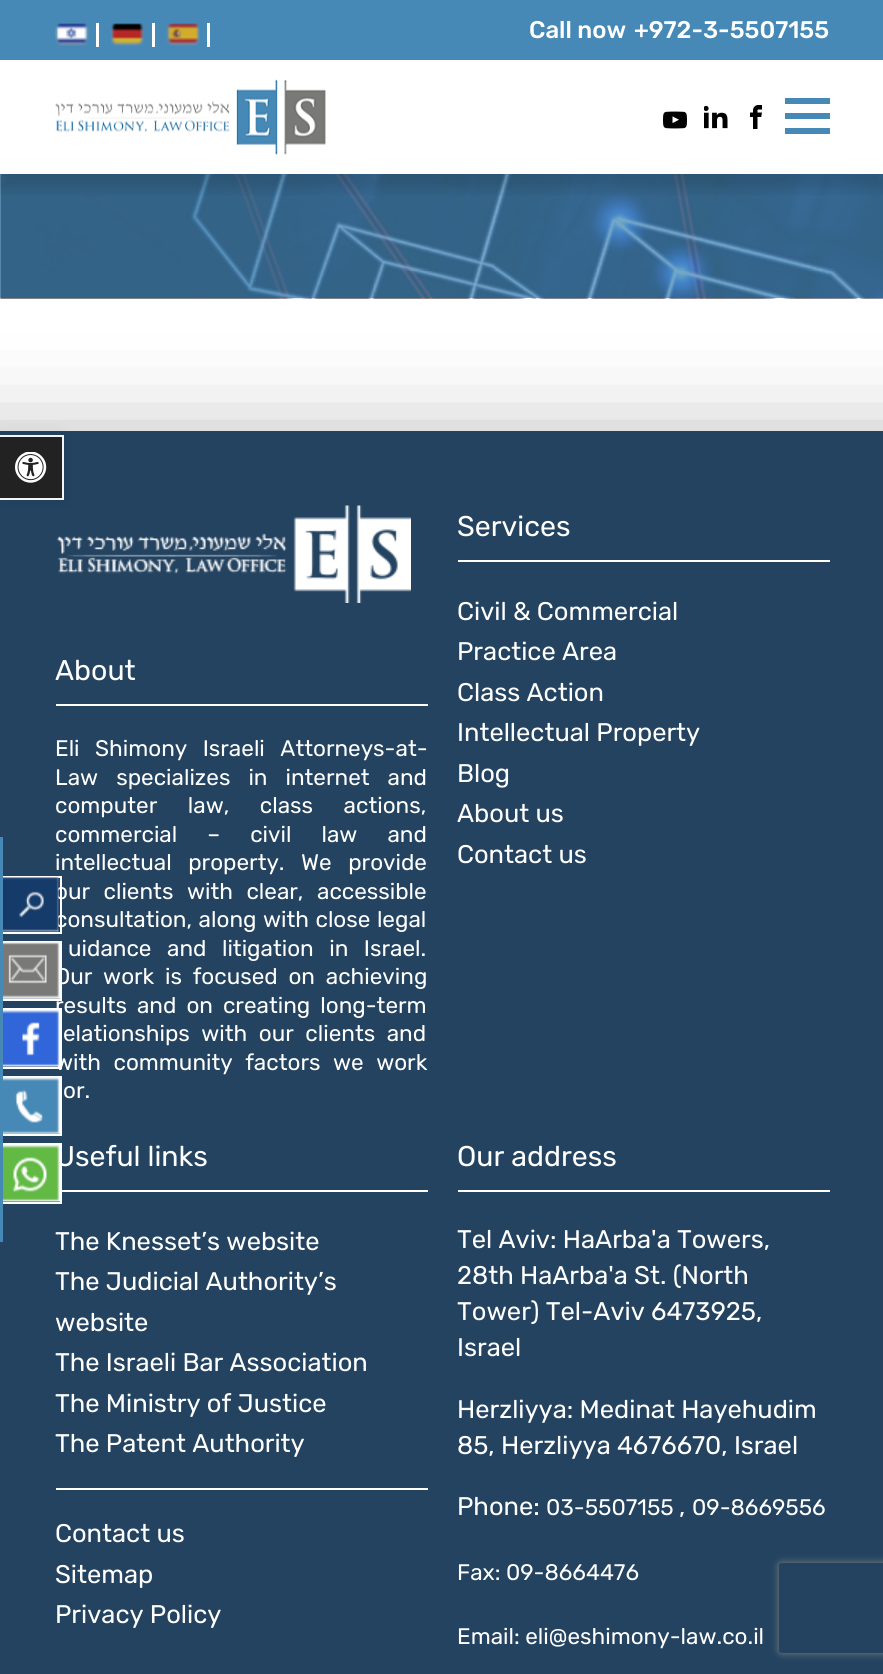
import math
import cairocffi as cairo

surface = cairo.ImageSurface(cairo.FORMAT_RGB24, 883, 1674)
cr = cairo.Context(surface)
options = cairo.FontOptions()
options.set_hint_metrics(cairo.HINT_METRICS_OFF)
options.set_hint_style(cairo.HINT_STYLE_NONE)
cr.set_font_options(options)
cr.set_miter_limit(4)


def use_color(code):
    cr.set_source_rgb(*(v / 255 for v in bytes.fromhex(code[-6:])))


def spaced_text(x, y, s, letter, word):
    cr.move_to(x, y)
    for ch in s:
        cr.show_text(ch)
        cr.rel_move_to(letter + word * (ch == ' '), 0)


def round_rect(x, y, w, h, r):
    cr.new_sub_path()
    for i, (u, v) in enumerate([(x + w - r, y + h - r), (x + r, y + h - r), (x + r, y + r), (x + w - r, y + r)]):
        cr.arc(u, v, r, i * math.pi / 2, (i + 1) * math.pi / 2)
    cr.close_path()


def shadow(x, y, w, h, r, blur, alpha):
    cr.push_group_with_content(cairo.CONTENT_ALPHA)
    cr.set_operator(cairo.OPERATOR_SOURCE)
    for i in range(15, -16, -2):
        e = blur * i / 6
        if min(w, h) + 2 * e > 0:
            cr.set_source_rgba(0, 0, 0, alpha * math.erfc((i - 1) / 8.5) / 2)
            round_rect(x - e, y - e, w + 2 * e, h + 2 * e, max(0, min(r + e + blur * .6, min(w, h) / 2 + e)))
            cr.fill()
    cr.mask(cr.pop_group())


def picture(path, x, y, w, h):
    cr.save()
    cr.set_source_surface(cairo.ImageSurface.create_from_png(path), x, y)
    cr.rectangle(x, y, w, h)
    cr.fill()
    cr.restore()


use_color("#ffffff")
cr.paint()
use_color("#000000")
shadow(-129, 446, 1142, 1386, 0, 52.5, 0.33)
picture("img1.png", 0, 174, 883, 125)
cr.set_source_rgba(0.278, 0.537, 0.714, 0.72)
cr.new_path()
cr.move_to(0, -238)
cr.line_to(3, -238)
cr.line_to(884, -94)
cr.line_to(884, 298)
cr.line_to(0, 298)
cr.close_path()
cr.fill()
use_color("#ffffff")
cr.rectangle(0, 60, 883, 114)
cr.fill()
use_color("#4789b6")
cr.rectangle(0, 0, 883, 60)
cr.fill()
picture("img2.png", 55, 23, 34, 23)
use_color("#ffffff")
cr.rectangle(96, 23, 3, 24)
cr.fill()
picture("img3.png", 111, 23, 33, 23)
cr.rectangle(152, 23, 3, 24)
cr.fill()
picture("img4.png", 166, 23, 34, 23)
cr.rectangle(207, 23, 3, 24)
cr.fill()
cr.select_font_face("Rubik Medium")
cr.set_font_size(24)
cr.move_to(529, 38)
cr.show_text("Call now")
cr.move_to(634, 38)
cr.show_text("+972-3-5507155")
cr.save()
cr.rectangle(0, 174, 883, 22)
cr.clip()
use_color("#000000")
shadow(0, 75, 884, 114, 0, 6.5, 0.14)
cr.restore()
picture("img5.png", 55, 79, 271, 76)
picture("img6.png", 663, 111, 24, 18)
picture("img7.png", 704, 105, 24, 24)
picture("img8.png", 750, 105, 12, 24)
use_color("#4789b6")
cr.rectangle(785, 113, 45, 6)
cr.fill()
cr.rectangle(785, 98, 45, 6)
cr.fill()
cr.rectangle(785, 128, 45, 6)
cr.fill()
use_color("#234360")
cr.rectangle(0, 431, 883, 1243)
cr.fill()
use_color("#ffffff")
cr.rectangle(0, 435, 63, 2)
cr.fill()
cr.rectangle(62, 435, 2, 65)
cr.fill()
cr.rectangle(0, 498, 63, 2)
cr.fill()
picture("img15.png", 56, 505, 355, 98)
use_color("#000000")
shadow(0, 437, 62, 61, 0, 7.5, 0.1)
use_color("#222222")
cr.rectangle(0, 437, 62, 61)
cr.fill()
picture("img9.png", 15, 452, 32, 31)
use_color("#4789b6")
cr.rectangle(0, 837, 3, 405)
cr.fill()
use_color("#ffffff")
cr.rectangle(3, 876, 59, 2)
cr.fill()
cr.rectangle(60, 876, 2, 57)
cr.fill()
cr.rectangle(3, 932, 59, 2)
cr.fill()
cr.select_font_face("Rubik")
cr.set_font_size(22.5)
spaced_text(55, 899, "our clients with clear, accessible", 0, 8)
spaced_text(55, 927, "consultation, along with close legal", 0, 1)
picture("img10.png", 3, 877, 56, 55)
cr.rectangle(3, 941, 59, 2)
cr.fill()
cr.rectangle(60, 941, 2, 60)
cr.fill()
cr.rectangle(3, 999, 59, 2)
cr.fill()
spaced_text(55, 984, "Our work is focused on achieving", 0, 5.25)
spaced_text(55, 1013, "results and on creating long-term", 0, 4.5)
picture("img11.png", 3, 941, 57, 58)
cr.rectangle(3, 1008, 59, 2)
cr.fill()
cr.rectangle(60, 1008, 2, 60)
cr.fill()
cr.rectangle(3, 1067, 59, 2)
cr.fill()
spaced_text(55, 1070, "with community factors we work", 0, 7)
picture("img12.png", 3, 1010, 57, 57)
cr.rectangle(3, 1076, 59, 2)
cr.fill()
cr.rectangle(60, 1076, 2, 60)
cr.fill()
cr.rectangle(3, 1134, 59, 2)
cr.fill()
picture("img13.png", 3, 1077, 57, 57)
cr.rectangle(3, 1143, 59, 2)
cr.fill()
cr.rectangle(56, 1190, 372, 2)
cr.fill()
cr.rectangle(60, 1143, 2, 60)
cr.fill()
cr.rectangle(3, 1202, 59, 2)
cr.fill()
cr.set_font_size(28.5)
cr.move_to(55, 1166)
cr.show_text("Useful links")
picture("img14.png", 3, 1145, 57, 57)
cr.rectangle(56, 704, 372, 2)
cr.fill()
cr.move_to(55, 680)
cr.show_text("About")
cr.set_font_size(22.5)
spaced_text(55, 756, "Eli Shimony Israeli Attorneys-at-", 0, 10)
spaced_text(55, 785, "Law specializes in internet and", 0, 12.5)
spaced_text(55, 813, "computer law, class actions,", 0, 25)
spaced_text(55, 842, "commercial – civil law and", 0, 24.5)
spaced_text(55, 870, "intellectual property. We provide", 0, 11)
spaced_text(68, 956, "uidance and litigation in Israel.", 0, 10)
spaced_text(63, 1041, "elationships with our clients and", 0, 6)
cr.move_to(63, 1098)
cr.show_text("or.")
cr.rectangle(458, 560, 372, 2)
cr.fill()
cr.set_font_size(28.5)
cr.move_to(457, 536)
cr.show_text("Services")
cr.set_font_size(25.5)
cr.move_to(457, 620)
cr.show_text("Civil & Commercial")
cr.move_to(457, 660)
cr.show_text("Practice Area")
cr.move_to(457, 701)
cr.show_text("Class Action")
cr.move_to(457, 741)
cr.show_text("Intellectual Property")
cr.move_to(457, 782)
cr.show_text("Blog")
cr.move_to(457, 822)
cr.show_text("About us")
cr.move_to(457, 863)
cr.show_text("Contact us")
cr.move_to(55, 1250)
cr.show_text("The Knesset’s website")
cr.move_to(55, 1290)
cr.show_text("The Judicial Authority’s")
cr.move_to(55, 1331)
cr.show_text("website")
cr.move_to(55, 1371)
cr.show_text("The Israeli Bar Association")
cr.move_to(55, 1412)
cr.show_text("The Ministry of Justice")
cr.move_to(55, 1452)
cr.show_text("The Patent Authority")
cr.rectangle(56, 1488, 372, 2)
cr.fill()
cr.move_to(55, 1542)
cr.show_text("Contact us")
cr.move_to(55, 1583)
cr.show_text("Sitemap")
cr.move_to(55, 1623)
cr.show_text("Privacy Policy")
cr.rectangle(458, 1190, 372, 2)
cr.fill()
cr.set_font_size(28.5)
cr.move_to(457, 1166)
cr.show_text("Our address")
cr.set_font_size(25.5)
cr.move_to(457, 1248)
cr.show_text("Tel Aviv: HaArba'a Towers,")
cr.move_to(457, 1284)
cr.show_text("28th HaArba'a St. (North")
cr.move_to(457, 1320)
cr.show_text("Tower) Tel-Aviv 6473925,")
cr.move_to(457, 1356)
cr.show_text("Israel")
cr.move_to(457, 1418)
cr.show_text("Herzliyya: Medinat Hayehudim")
cr.move_to(457, 1454)
cr.show_text("85, Herzliyya 4676670, Israel")
cr.move_to(457, 1515)
cr.show_text("Phone:")
cr.set_font_size(22.5)
cr.move_to(546, 1515)
cr.show_text("03-5507155")
cr.set_font_size(25.5)
cr.move_to(679, 1515)
cr.show_text(",")
cr.set_font_size(22.5)
cr.move_to(692, 1515)
cr.show_text("09-8669556")
cr.move_to(457, 1580)
cr.show_text("Fax: 09-8664476")
cr.move_to(457, 1644)
cr.show_text("Email: eli@eshimony-law.co.il")
cr.save()
cr.set_fill_rule(cairo.FILL_RULE_EVEN_ODD)
cr.new_path()
cr.move_to(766, 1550)
cr.line_to(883, 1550)
cr.line_to(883, 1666)
cr.line_to(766, 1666)
cr.close_path()
cr.move_to(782, 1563)
cr.line_to(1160, 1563)
cr.curve_to(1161.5, 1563, 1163, 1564.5, 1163, 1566)
cr.line_to(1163, 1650)
cr.curve_to(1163, 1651.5, 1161.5, 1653, 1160, 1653)
cr.line_to(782, 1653)
cr.curve_to(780.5, 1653, 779, 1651.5, 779, 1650)
cr.line_to(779, 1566)
cr.curve_to(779, 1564.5, 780.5, 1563, 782, 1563)
cr.close_path()
cr.clip()
use_color("#808080")
shadow(779, 1563, 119, 90, 3, 4, 1)
cr.restore()
surface.write_to_png("result.png")
